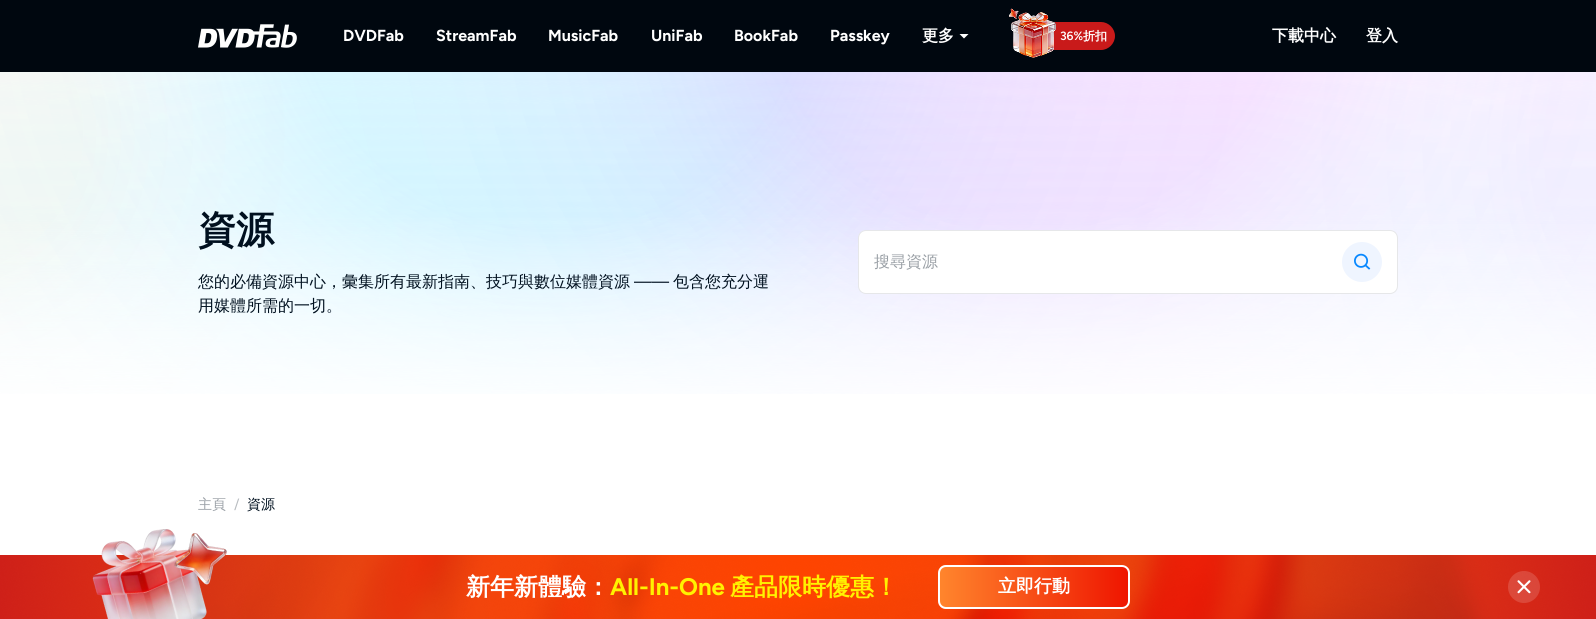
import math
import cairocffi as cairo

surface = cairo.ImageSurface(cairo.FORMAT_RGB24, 1596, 619)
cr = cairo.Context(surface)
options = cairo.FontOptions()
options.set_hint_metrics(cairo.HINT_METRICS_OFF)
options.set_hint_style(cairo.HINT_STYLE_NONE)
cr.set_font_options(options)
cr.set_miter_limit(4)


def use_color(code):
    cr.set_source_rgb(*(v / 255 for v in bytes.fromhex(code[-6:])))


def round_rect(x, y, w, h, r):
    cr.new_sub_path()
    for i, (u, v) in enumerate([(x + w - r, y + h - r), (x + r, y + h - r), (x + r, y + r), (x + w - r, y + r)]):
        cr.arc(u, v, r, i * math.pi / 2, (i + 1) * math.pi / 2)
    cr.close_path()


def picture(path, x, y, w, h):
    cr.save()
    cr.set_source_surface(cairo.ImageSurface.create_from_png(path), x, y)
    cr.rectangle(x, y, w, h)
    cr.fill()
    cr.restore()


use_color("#ffffff")
cr.paint()
use_color("#00070f")
cr.rectangle(0, 0, 1596, 72)
cr.fill()
picture("img1.png", 198, 24, 99, 24)
cr.select_font_face("Figtree", cairo.FONT_SLANT_NORMAL, cairo.FONT_WEIGHT_BOLD)
cr.set_font_size(16)
use_color("#ffffff")
cr.move_to(343, 41)
cr.show_text("DVDFab")
cr.move_to(436, 41)
cr.show_text("StreamFab")
cr.move_to(548, 41)
cr.show_text("MusicFab")
cr.move_to(651, 41)
cr.show_text("UniFab")
cr.move_to(734, 41)
cr.show_text("BookFab")
cr.move_to(830, 41)
cr.show_text("Passkey")
cr.select_font_face("WenQuanYi Zen Hei", cairo.FONT_SLANT_NORMAL, cairo.FONT_WEIGHT_BOLD)
cr.move_to(922, 41)
cr.show_text("更多")
cr.new_path()
cr.move_to(964, 38.5)
cr.line_to(968.5, 34)
cr.line_to(959.5, 34)
cr.close_path()
cr.fill()
use_color("#c91a1a")
cr.new_path()
cr.move_to(1042, 22)
cr.line_to(1101, 22)
cr.curve_to(1108.5, 22, 1115, 28.5, 1115, 36)
cr.curve_to(1115, 43.5, 1108.5, 50, 1101, 50)
cr.line_to(1028, 50)
cr.line_to(1028, 36)
cr.curve_to(1028, 28.5, 1034.5, 22, 1042, 22)
cr.close_path()
cr.fill()
picture("img2.png", 1009, 8, 47, 50)
cr.select_font_face("Figtree SemiBold")
cr.set_font_size(12)
use_color("#ffffff")
cr.move_to(1060, 40)
cr.show_text("36%")
cr.select_font_face("WenQuanYi Zen Hei", cairo.FONT_SLANT_NORMAL, cairo.FONT_WEIGHT_BOLD)
cr.move_to(1083, 40)
cr.show_text("折扣")
cr.set_font_size(16)
cr.move_to(1272, 41)
cr.show_text("下載中心")
cr.move_to(1366, 41)
cr.show_text("登入")
picture("img3.png", 0, 72, 1596, 322)
cr.set_font_size(38)
use_color("#00101f")
cr.move_to(198, 243)
cr.show_text("資源")
cr.select_font_face("WenQuanYi Zen Hei Medium")
cr.set_font_size(16)
cr.move_to(198, 287)
cr.show_text("您的必備資源中心，彙集所有最新指南、技巧與數位媒體資源")
cr.select_font_face("Figtree Light")
cr.move_to(634, 287)
cr.show_text("——")
cr.select_font_face("WenQuanYi Zen Hei Medium")
cr.move_to(673, 287)
cr.show_text("包含您充分運")
cr.move_to(198, 311)
cr.show_text("用媒體所需的一切。")
use_color("#ffffff")
round_rect(858, 230, 540, 64, 8)
cr.fill()
round_rect(858.5, 230.5, 539, 63, 7.5)
cr.set_source_rgba(0, 0.063, 0.122, 0.1)
cr.set_line_width(1)
cr.stroke()
use_color("#999fa5")
cr.move_to(874, 267)
cr.show_text("搜尋資源")
use_color("#eff5ff")
cr.new_path()
cr.arc(1362, 262, 20, 0, 2 * math.pi)
cr.fill()
picture("img4.png", 1354, 253, 17, 17)
cr.set_font_size(14)
use_color("#999fa5")
cr.move_to(198, 509)
cr.show_text("主頁")
cr.select_font_face("Figtree Light")
use_color("#b8bcc0")
cr.move_to(234, 509)
cr.show_text("/")
cr.select_font_face("WenQuanYi Zen Hei Medium")
use_color("#00101f")
cr.move_to(247, 509)
cr.show_text("資源")
picture("img5.png", 0, 555, 1596, 64)
picture("img6.png", 92, 529, 135, 90)
cr.select_font_face("WenQuanYi Zen Hei", cairo.FONT_SLANT_NORMAL, cairo.FONT_WEIGHT_BOLD)
cr.set_font_size(24)
use_color("#ffffff")
cr.move_to(466, 595)
cr.show_text("新年新體驗：")
cr.select_font_face("Figtree", cairo.FONT_SLANT_NORMAL, cairo.FONT_WEIGHT_BOLD)
use_color("#fff200")
cr.move_to(610, 595)
cr.show_text("All-In-One")
cr.select_font_face("WenQuanYi Zen Hei", cairo.FONT_SLANT_NORMAL, cairo.FONT_WEIGHT_BOLD)
cr.move_to(730, 595)
cr.show_text("產品限時優惠！")
cr.save()
round_rect(938, 565, 192, 44, 8)
cr.clip()
gradient = cairo.LinearGradient(940, 587, 1128, 587)
gradient.add_color_stop_rgba(0.01, 1, 0.518, 0.173, 1)
gradient.add_color_stop_rgba(1, 0.937, 0.082, 0, 1)
cr.set_source(gradient)
cr.rectangle(940, 565, 188, 44)
cr.fill()
cr.restore()
round_rect(939, 566, 190, 42, 7)
use_color("#ffffff")
cr.set_line_width(2)
cr.stroke()
cr.set_font_size(18)
cr.move_to(998, 592)
cr.show_text("立即行動")
cr.set_source_rgba(1, 1, 1, 0.15)
cr.new_path()
cr.arc(1524, 587, 16, 0, 2 * math.pi)
cr.fill()
picture("img7.png", 1517, 580, 14, 14)
surface.write_to_png("result.png")
